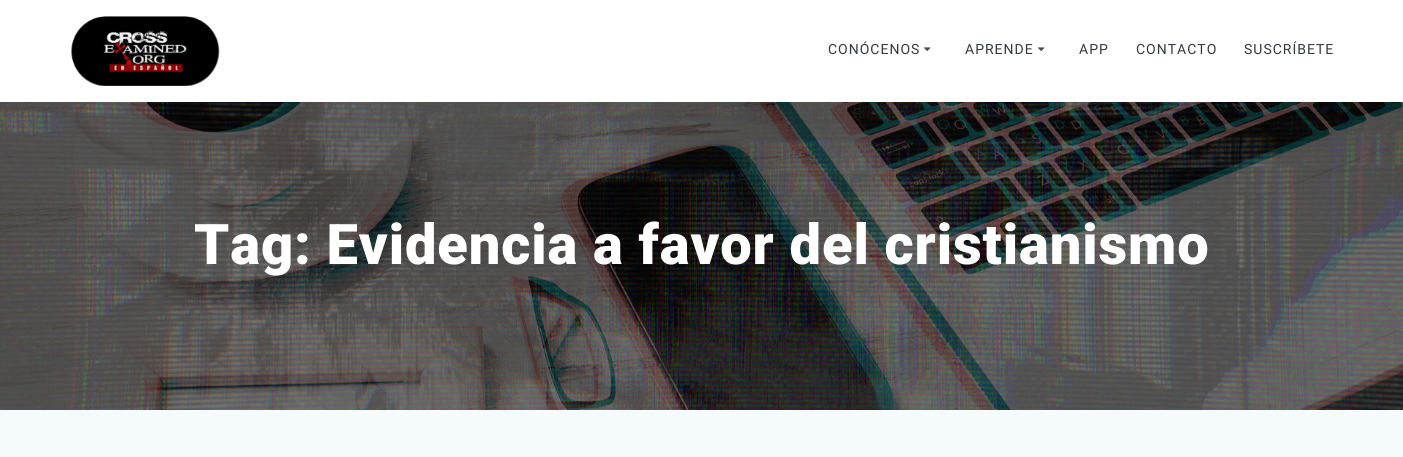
import math
import cairocffi as cairo

surface = cairo.ImageSurface(cairo.FORMAT_RGB24, 1403, 457)
cr = cairo.Context(surface)
options = cairo.FontOptions()
options.set_hint_metrics(cairo.HINT_METRICS_OFF)
options.set_hint_style(cairo.HINT_STYLE_NONE)
cr.set_font_options(options)
cr.set_miter_limit(4)


def use_color(code):
    cr.set_source_rgb(*(v / 255 for v in bytes.fromhex(code[-6:])))


def spaced_text(x, y, s, letter, word):
    cr.move_to(x, y)
    for ch in s:
        cr.show_text(ch)
        cr.rel_move_to(letter + word * (ch == ' '), 0)


def picture(path, x, y, w, h):
    cr.save()
    cr.set_source_surface(cairo.ImageSurface.create_from_png(path), x, y)
    cr.rectangle(x, y, w, h)
    cr.fill()
    cr.restore()


use_color("#ffffff")
cr.paint()
picture("img1.png", 71, 16, 149, 70)
cr.select_font_face("Roboto")
cr.set_font_size(14)
use_color("#343a40")
spaced_text(828, 54, "CONÓCENOS", 1, 0)
picture("img2.png", 924, 47, 7, 4)
spaced_text(965, 54, "APRENDE", 1, 0)
picture("img2.png", 1038, 47, 7, 4)
spaced_text(1079, 54, "APP", 1, 0)
spaced_text(1136, 54, "CONTACTO", 1, 0)
spaced_text(1244, 54, "SUSCRÍBETE", 1, 0)
picture("img3.png", 0, 102, 1403, 308)
cr.select_font_face("Roboto Black")
cr.set_font_size(56)
use_color("#ffffff")
spaced_text(194, 264, "Tag: Evidencia a favor del cristianismo", 0.9, 0)
use_color("#f5fafd")
cr.rectangle(0, 410, 1403, 47)
cr.fill()
surface.write_to_png("result.png")
